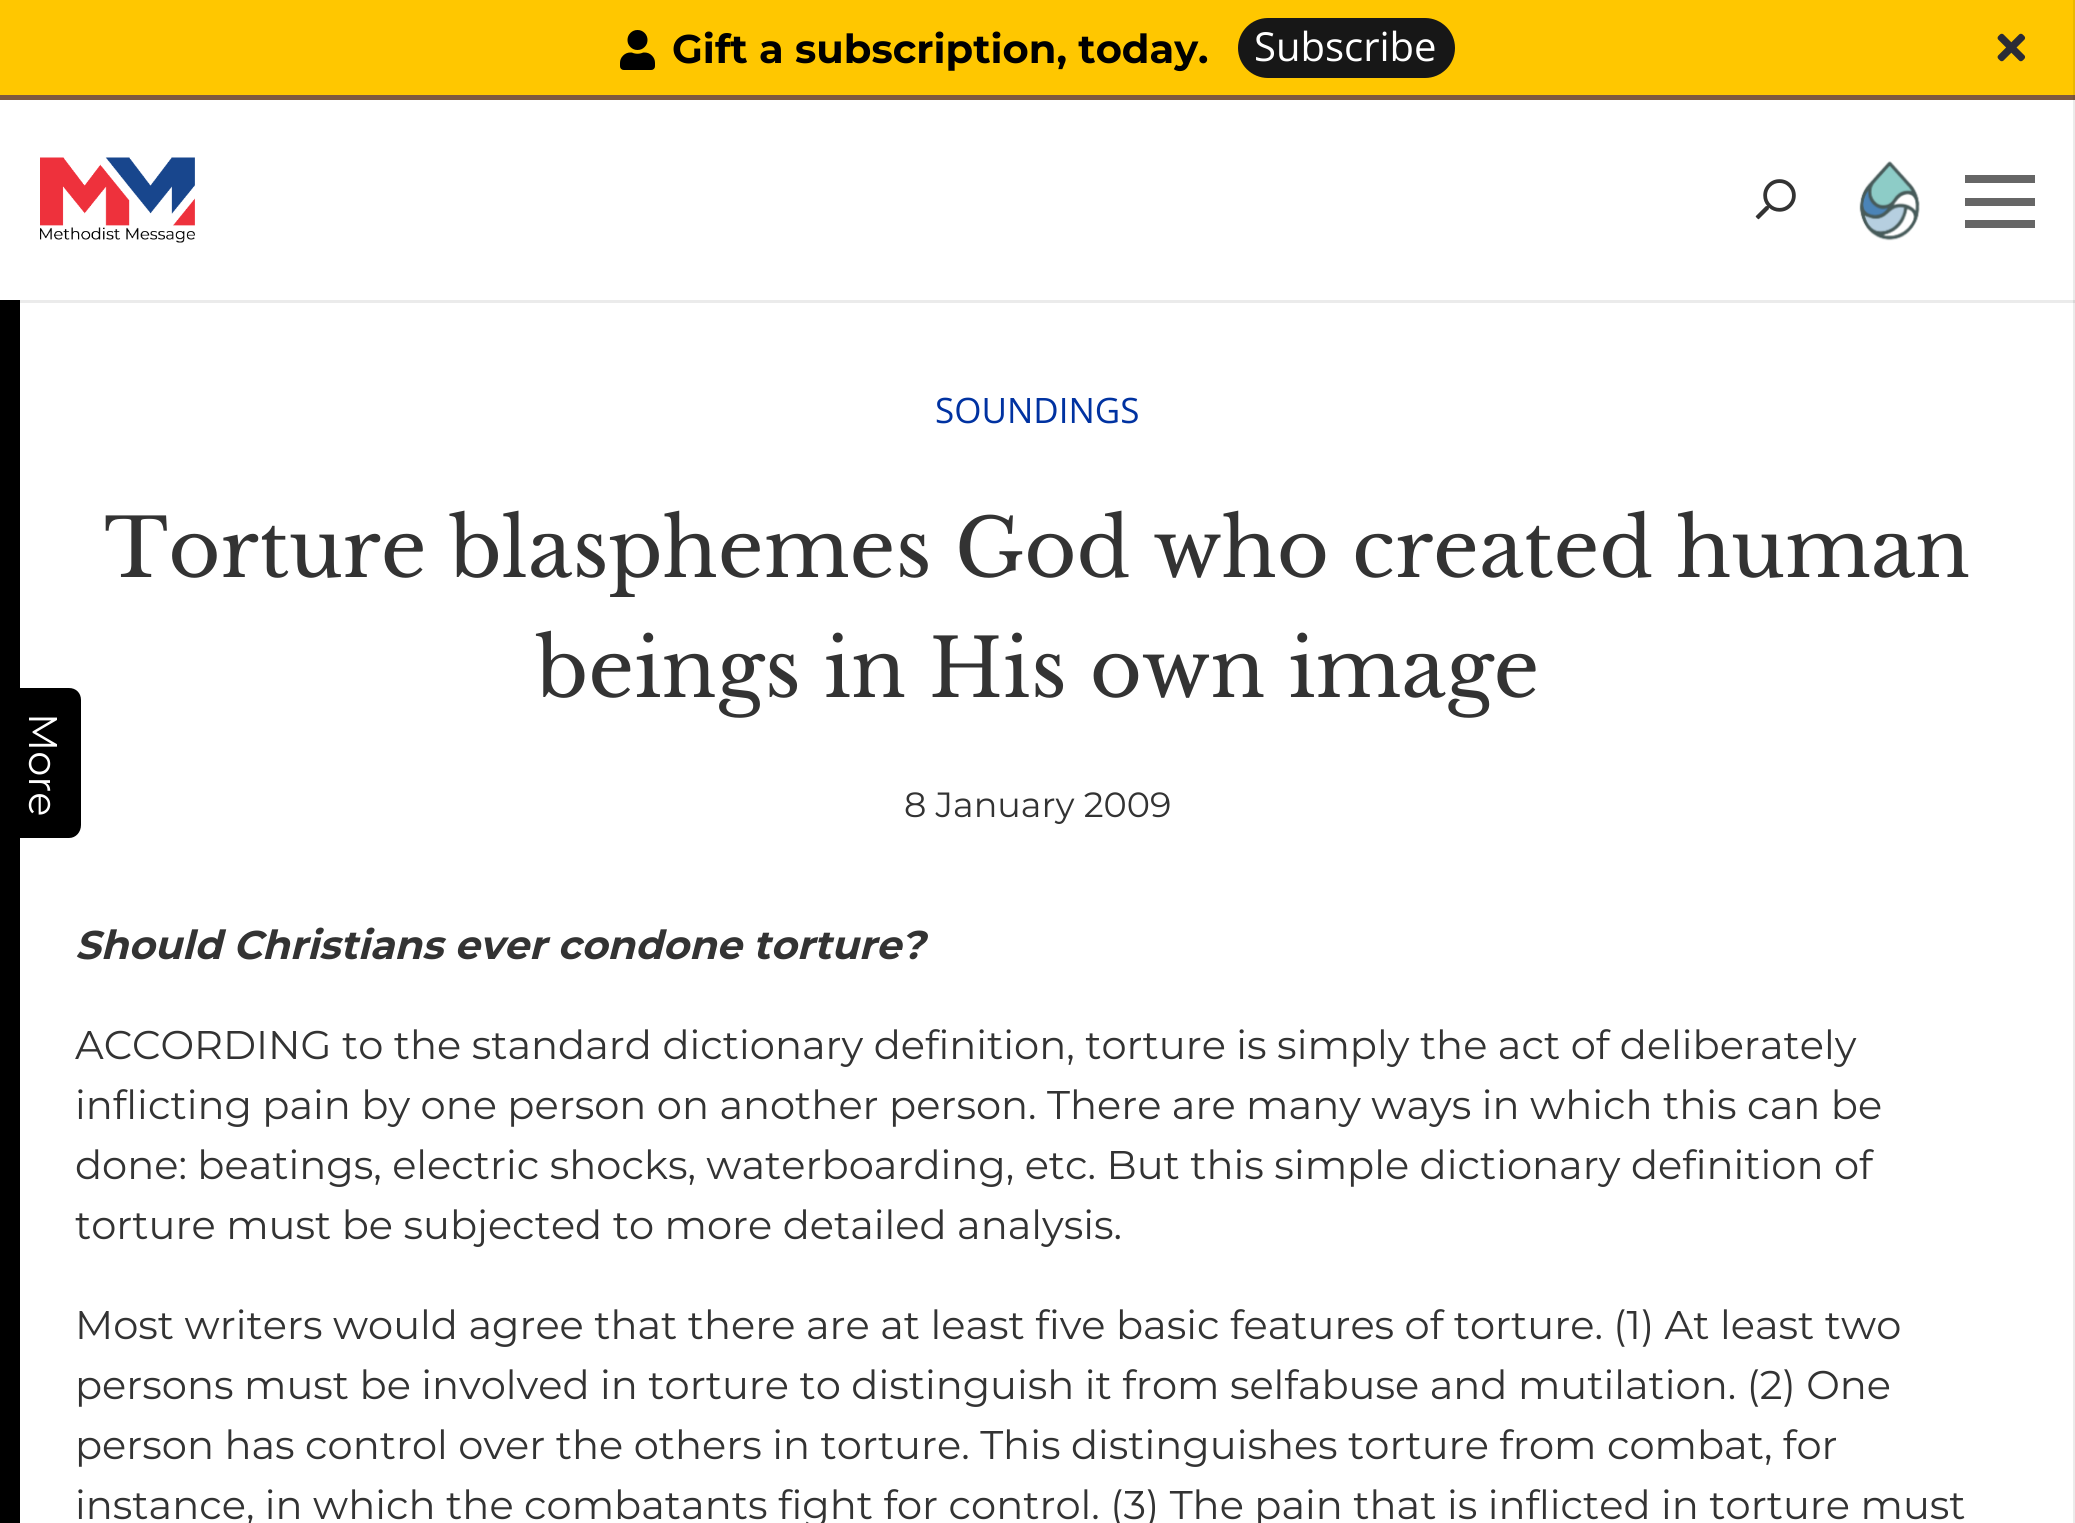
import math
import cairocffi as cairo

surface = cairo.ImageSurface(cairo.FORMAT_RGB24, 2075, 1523)
cr = cairo.Context(surface)
options = cairo.FontOptions()
options.set_hint_metrics(cairo.HINT_METRICS_OFF)
options.set_hint_style(cairo.HINT_STYLE_NONE)
cr.set_font_options(options)
cr.set_miter_limit(4)


def use_color(code):
    cr.set_source_rgb(*(v / 255 for v in bytes.fromhex(code[-6:])))


def round_rect(x, y, w, h, r):
    cr.new_sub_path()
    for i, (u, v) in enumerate([(x + w - r, y + h - r), (x + r, y + h - r), (x + r, y + r), (x + w - r, y + r)]):
        cr.arc(u, v, r, i * math.pi / 2, (i + 1) * math.pi / 2)
    cr.close_path()


def picture(path, x, y, w, h):
    cr.save()
    cr.set_source_surface(cairo.ImageSurface.create_from_png(path), x, y)
    cr.rectangle(x, y, w, h)
    cr.fill()
    cr.restore()


use_color("#ffffff")
cr.paint()
use_color("#ebebeb")
cr.rectangle(2073, 303, 2, 1220)
cr.fill()
cr.rectangle(20, 300, 2055, 3)
cr.fill()
use_color("#d8d8d8")
cr.rectangle(2073, 300, 2, 3)
cr.fill()
use_color("#ffc700")
cr.rectangle(0, 0, 2073, 95)
cr.fill()
use_color("#ebb700")
cr.rectangle(2073, 0, 2, 100)
cr.fill()
use_color("#7e593f")
cr.rectangle(0, 95, 2075, 5)
cr.fill()
use_color("#74523a")
cr.rectangle(2073, 95, 2, 5)
cr.fill()
picture("img1.png", 620, 30, 35, 40)
cr.select_font_face("Montserrat", cairo.FONT_SLANT_NORMAL, cairo.FONT_WEIGHT_BOLD)
cr.set_font_size(40)
use_color("#000000")
cr.move_to(672, 63)
cr.show_text("Gift a subscription, today.")
use_color("#171717")
round_rect(1238, 18, 217, 60, 30)
cr.fill()
cr.select_font_face("Open Sans")
use_color("#ffffff")
cr.move_to(1254, 61)
cr.show_text("Subscribe")
picture("img2.png", 1997, 33, 29, 29)
use_color("#ebebeb")
cr.rectangle(2073, 100, 2, 200)
cr.fill()
picture("img3.png", 40, 157, 155, 86)
picture("img4.png", 1755, 179, 41, 41)
picture("img5.png", 1859, 161, 61, 80)
use_color("#666666")
cr.rectangle(1965, 198, 70, 8)
cr.fill()
cr.rectangle(1965, 175, 70, 8)
cr.fill()
cr.rectangle(1965, 220, 70, 8)
cr.fill()
use_color("#000000")
cr.new_path()
cr.move_to(81, 700)
cr.line_to(81, 825)
cr.curve_to(81, 832, 76, 838, 69, 838)
cr.line_to(19, 838)
cr.line_to(19, 688)
cr.line_to(69, 688)
cr.curve_to(76, 688, 81, 693, 81, 700)
cr.close_path()
cr.fill()
cr.rectangle(0, 300, 20, 1223)
cr.fill()
cr.select_font_face("Montserrat")
use_color("#ffffff")
cr.save()
cr.translate(29, 713)
cr.rotate(90 * math.pi / 180)
cr.move_to(0, 0)
cr.show_text("More")
cr.restore()
cr.select_font_face("Open Sans")
cr.set_font_size(35)
use_color("#0032a1")
cr.move_to(935, 423)
cr.show_text("SOUNDINGS")
cr.select_font_face("Libre Baskerville")
cr.set_font_size(80)
use_color("#333333")
cr.move_to(104, 577)
cr.show_text("Torture blasphemes God who created human")
cr.move_to(536, 697)
cr.show_text("beings in His own image")
cr.select_font_face("Montserrat")
cr.set_font_size(35)
cr.move_to(904, 817)
cr.show_text("8 January 2009")
cr.select_font_face("Montserrat", cairo.FONT_SLANT_ITALIC, cairo.FONT_WEIGHT_BOLD)
cr.set_font_size(40)
cr.move_to(75, 959)
cr.show_text("Should Christians ever condone torture?")
cr.select_font_face("Montserrat")
cr.move_to(75, 1059)
cr.show_text("ACCORDING to the standard dictionary definition, torture is simply the act of deliberately")
cr.move_to(75, 1119)
cr.show_text("inflicting pain by one person on another person. There are many ways in which this can be")
cr.move_to(75, 1179)
cr.show_text("done: beatings, electric shocks, waterboarding, etc. But this simple dictionary definition of")
cr.move_to(75, 1239)
cr.show_text("torture must be subjected to more detailed analysis.")
cr.move_to(75, 1339)
cr.show_text("Most writers would agree that there are at least five basic features of torture. (1) At least two")
cr.move_to(75, 1399)
cr.show_text("persons must be involved in torture to distinguish it from selfabuse and mutilation. (2) One")
cr.move_to(75, 1459)
cr.show_text("person has control over the others in torture. This distinguishes torture from combat, for")
cr.move_to(75, 1519)
cr.show_text("instance, in which the combatants fight for control. (3) The pain that is inflicted in torture must")
surface.write_to_png("result.png")
